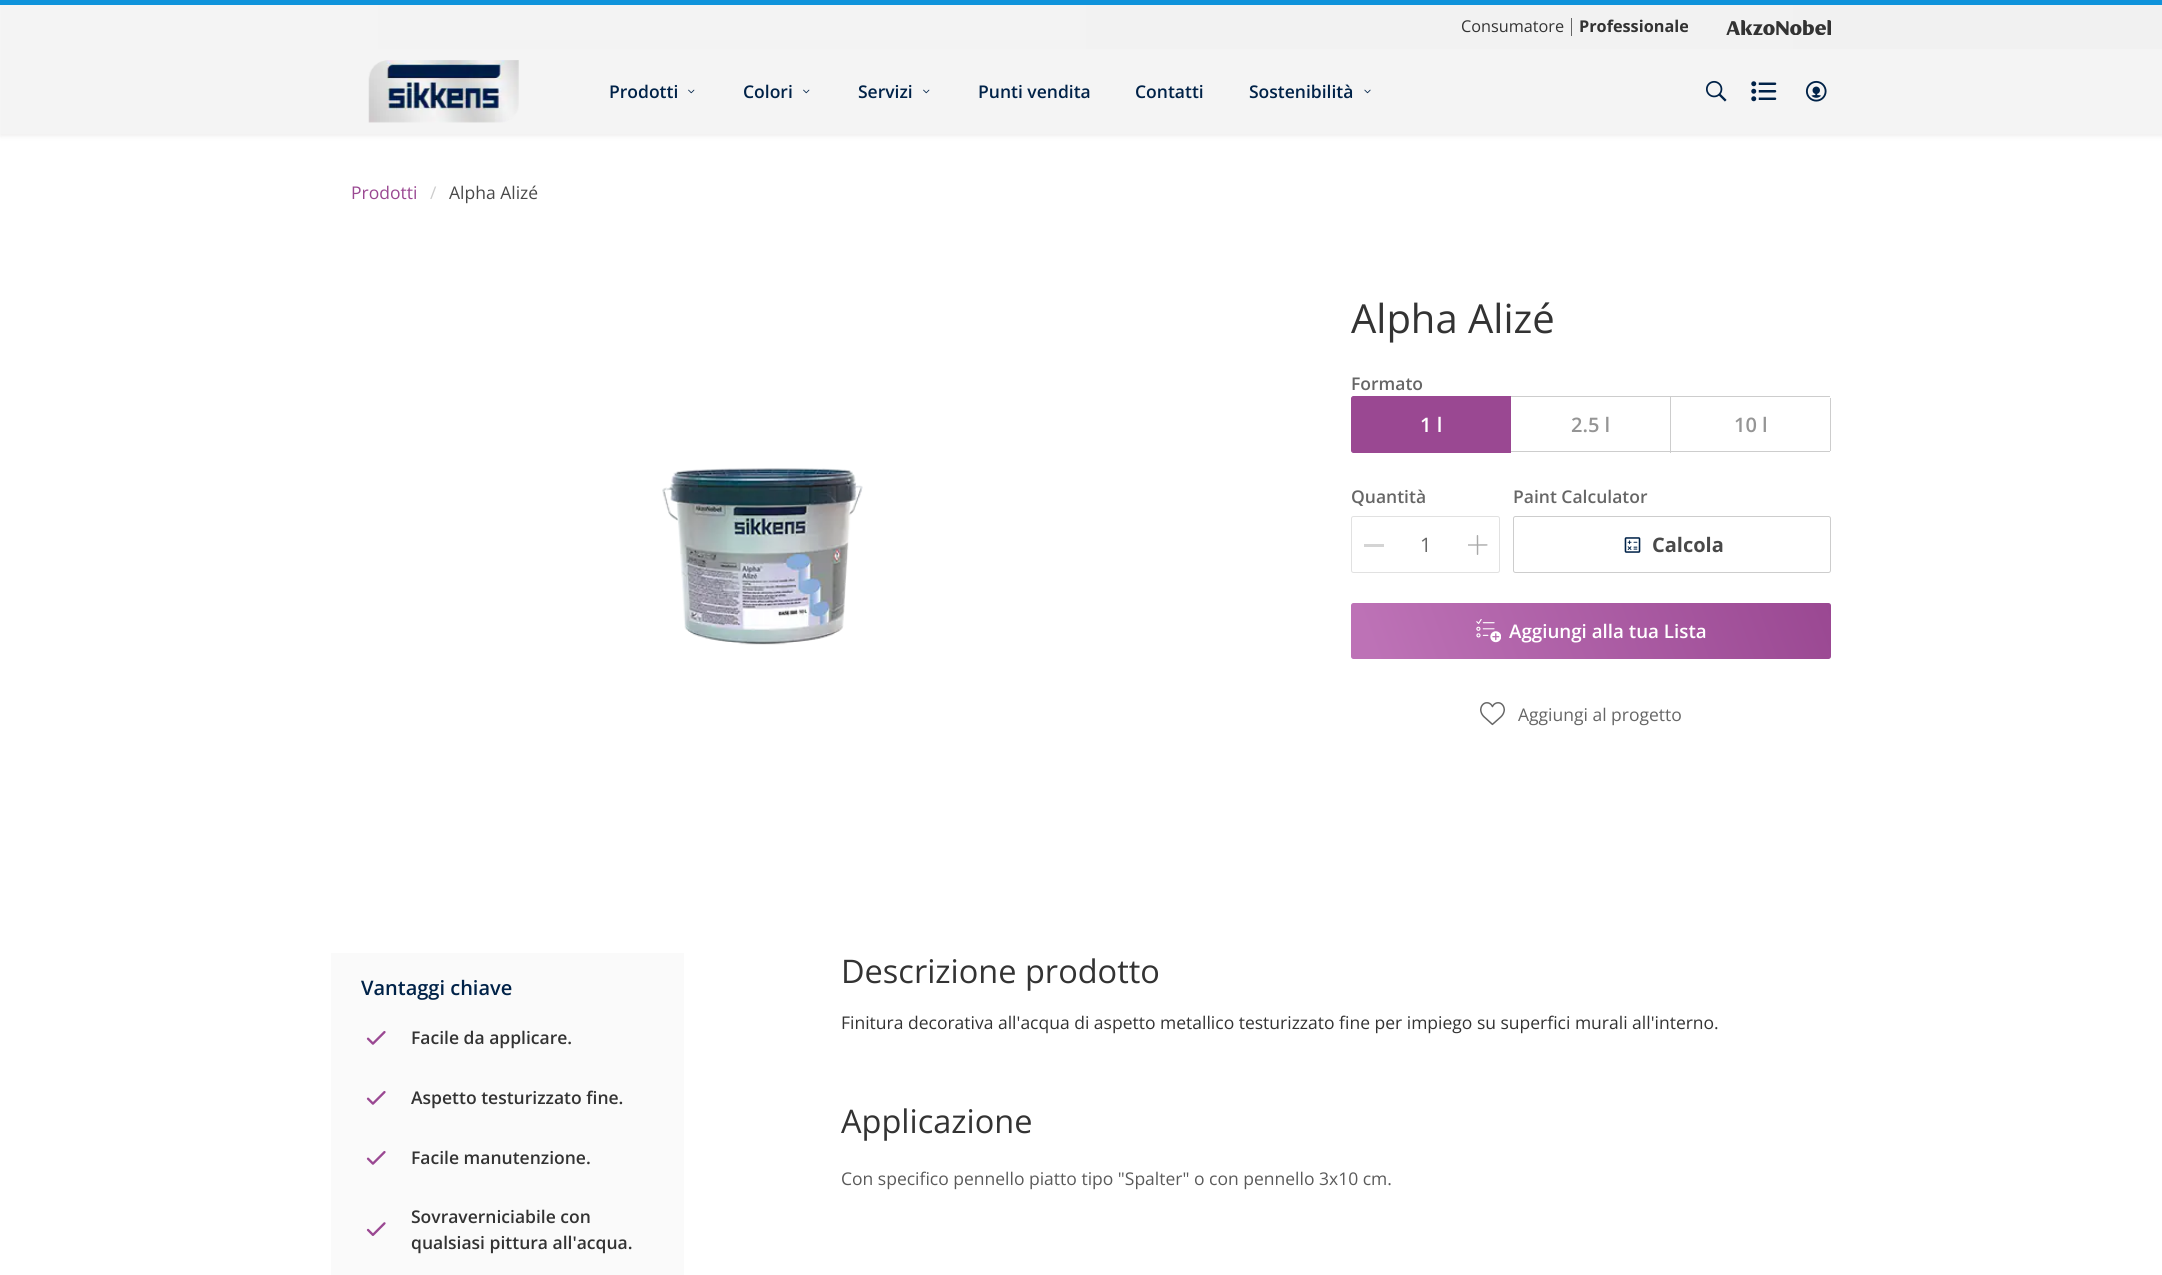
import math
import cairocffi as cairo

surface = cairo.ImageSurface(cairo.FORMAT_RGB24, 2162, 1275)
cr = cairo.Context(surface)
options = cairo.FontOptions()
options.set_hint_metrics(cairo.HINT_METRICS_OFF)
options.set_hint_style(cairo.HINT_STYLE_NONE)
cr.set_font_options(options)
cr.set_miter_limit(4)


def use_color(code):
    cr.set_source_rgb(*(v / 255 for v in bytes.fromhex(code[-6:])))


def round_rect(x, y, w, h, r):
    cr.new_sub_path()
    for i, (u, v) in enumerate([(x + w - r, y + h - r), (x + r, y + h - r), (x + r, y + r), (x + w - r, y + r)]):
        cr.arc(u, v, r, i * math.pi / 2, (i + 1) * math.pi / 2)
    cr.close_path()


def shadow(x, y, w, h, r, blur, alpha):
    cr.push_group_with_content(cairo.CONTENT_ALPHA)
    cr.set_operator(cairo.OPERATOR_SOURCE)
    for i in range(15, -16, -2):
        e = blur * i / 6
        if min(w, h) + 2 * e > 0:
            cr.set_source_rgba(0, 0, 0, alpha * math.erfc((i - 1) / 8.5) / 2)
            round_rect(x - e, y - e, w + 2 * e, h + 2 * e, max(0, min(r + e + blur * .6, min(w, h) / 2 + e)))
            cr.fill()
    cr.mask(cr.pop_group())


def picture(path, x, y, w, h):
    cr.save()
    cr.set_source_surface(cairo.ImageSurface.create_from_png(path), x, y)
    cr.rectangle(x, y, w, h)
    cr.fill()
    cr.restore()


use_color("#ffffff")
cr.paint()
use_color("#4f4141")
shadow(0, 3, 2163, 133, 0, 2.5, 0.1)
use_color("#f4f4f4")
cr.rectangle(1, 49, 2161, 85)
cr.fill()
use_color("#0f93db")
cr.rectangle(0, 0, 2162, 5)
cr.fill()
gradient = cairo.LinearGradient(0, 27, 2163, 27)
gradient.add_color_stop_rgba(0, 0.957, 0.957, 0.957, 1)
gradient.add_color_stop_rgba(1, 0.945, 0.945, 0.945, 1)
cr.set_source(gradient)
cr.rectangle(1, 5, 2161, 44)
cr.fill()
cr.select_font_face("Open Sans")
cr.set_font_size(16.25)
use_color("#333333")
cr.move_to(1461, 32)
cr.show_text("Consumatore")
use_color("#666666")
cr.rectangle(1571, 18, 1, 18)
cr.fill()
cr.select_font_face("Open Sans", cairo.FONT_SLANT_NORMAL, cairo.FONT_WEIGHT_BOLD)
use_color("#333333")
cr.move_to(1579, 32)
cr.show_text("Professionale")
picture("img1.png", 1726, 20, 105, 15)
picture("img2.png", 368, 60, 151, 63)
cr.select_font_face("Open Sans SemiBold")
cr.set_font_size(17.5)
use_color("#002248")
cr.move_to(609, 98)
cr.show_text("Prodotti")
picture("img3.png", 688, 89, 7, 5)
cr.move_to(743, 98)
cr.show_text("Colori")
picture("img3.png", 803, 89, 7, 5)
cr.move_to(858, 98)
cr.show_text("Servizi")
picture("img3.png", 923, 89, 7, 5)
cr.move_to(978, 98)
cr.show_text("Punti vendita")
cr.move_to(1135, 98)
cr.show_text("Contatti")
cr.move_to(1249, 98)
cr.show_text("Sostenibilità")
picture("img4.png", 1364, 89, 7, 5)
picture("img5.png", 1706, 80, 21, 22)
picture("img6.png", 1751, 81, 26, 21)
picture("img7.png", 1805, 80, 22, 22)
cr.select_font_face("Open Sans")
use_color("#9a4892")
cr.move_to(351, 199)
cr.show_text("Prodotti")
use_color("#cdcdcd")
cr.move_to(430, 199)
cr.show_text("/")
use_color("#494949")
cr.move_to(449, 199)
cr.show_text("Alpha Alizé")
picture("img8.png", 662, 468, 201, 177)
cr.set_font_size(40)
use_color("#333333")
cr.move_to(1351, 333)
cr.show_text("Alpha Alizé")
cr.select_font_face("Open Sans SemiBold")
cr.set_font_size(17.5)
use_color("#666666")
cr.move_to(1351, 390)
cr.show_text("Formato")
use_color("#9a4892")
cr.new_path()
cr.move_to(1353.5, 396.5)
cr.line_to(1510.5, 396.5)
cr.line_to(1510.5, 452.5)
cr.line_to(1353.5, 452.5)
cr.curve_to(1352.5, 452.5, 1351.5, 451.5, 1351.5, 450.5)
cr.line_to(1351.5, 398.5)
cr.curve_to(1351.5, 397.5, 1352.5, 396.5, 1353.5, 396.5)
cr.close_path()
cr.fill_preserve()
cr.set_line_width(1)
cr.stroke()
cr.set_font_size(20)
use_color("#ffffff")
cr.move_to(1420, 432)
cr.show_text("1 l")
use_color("#cdcdcd")
cr.rectangle(1511, 396, 319, 1)
cr.fill()
cr.rectangle(1670, 396, 1, 57)
cr.fill()
cr.rectangle(1511, 451, 319, 1)
cr.fill()
use_color("#959595")
cr.move_to(1571, 432)
cr.show_text("2.5 l")
use_color("#cdcdcd")
cr.rectangle(1830, 398, 1, 53)
cr.fill()
use_color("#959595")
cr.move_to(1734, 432)
cr.show_text("10 l")
cr.set_font_size(17.5)
use_color("#666666")
cr.move_to(1351, 503)
cr.show_text("Quantità")
round_rect(1351.5, 516.5, 148, 56, 2)
use_color("#e1e1e1")
cr.stroke()
use_color("#d4d4d4")
cr.rectangle(1364, 544, 20, 3)
cr.fill()
cr.select_font_face("Open Sans")
cr.set_font_size(20)
use_color("#666666")
cr.move_to(1420, 552)
cr.show_text("1")
picture("img9.png", 1468, 535, 20, 20)
cr.select_font_face("Open Sans SemiBold")
cr.set_font_size(17.5)
cr.move_to(1513, 503)
cr.show_text("Paint Calculator")
round_rect(1513.5, 516.5, 317, 56, 2)
use_color("#cdcdcd")
cr.stroke()
picture("img10.png", 1624, 537, 17, 16)
cr.select_font_face("Open Sans", cairo.FONT_SLANT_NORMAL, cairo.FONT_WEIGHT_BOLD)
cr.set_font_size(20)
use_color("#494949")
cr.move_to(1652, 552)
cr.show_text("Calcola")
gradient = cairo.LinearGradient(1370, 711, 1812, 550)
gradient.add_color_stop_rgba(0.05, 0.741, 0.447, 0.714, 1)
gradient.add_color_stop_rgba(1, 0.604, 0.282, 0.573, 1)
cr.set_source(gradient)
round_rect(1351, 603, 480, 56, 2.5)
cr.fill()
picture("img11.png", 1476, 619, 25, 24)
cr.select_font_face("Open Sans SemiBold")
cr.set_font_size(18.75)
use_color("#ffffff")
cr.move_to(1509, 638)
cr.show_text("Aggiungi alla tua Lista")
picture("img12.png", 1480, 702, 25, 24)
cr.select_font_face("Open Sans")
cr.set_font_size(17.5)
use_color("#666666")
cr.move_to(1518, 721)
cr.show_text("Aggiungi al progetto")
use_color("#fafafa")
cr.rectangle(331, 953, 353, 322)
cr.fill()
cr.select_font_face("Open Sans SemiBold")
cr.set_font_size(20)
use_color("#002248")
cr.move_to(361, 995)
cr.show_text("Vantaggi chiave")
picture("img13.png", 366, 1031, 20, 14)
cr.set_font_size(17.5)
use_color("#333333")
cr.move_to(411, 1044)
cr.show_text("Facile da applicare.")
picture("img13.png", 366, 1091, 20, 14)
cr.move_to(411, 1104)
cr.show_text("Aspetto testurizzato fine.")
picture("img13.png", 366, 1151, 20, 14)
cr.move_to(411, 1164)
cr.show_text("Facile manutenzione.")
picture("img14.png", 366, 1222, 20, 14)
cr.move_to(411, 1223)
cr.show_text("Sovraverniciabile con")
cr.move_to(411, 1249)
cr.show_text("qualsiasi pittura all'acqua.")
cr.select_font_face("Open Sans")
cr.set_font_size(32.5)
cr.move_to(841, 983)
cr.show_text("Descrizione prodotto")
cr.set_font_size(17.5)
cr.move_to(841, 1029)
cr.show_text("Finitura decorativa all'acqua di aspetto metallico testurizzato fine per impiego su superfici murali all'interno.")
cr.set_font_size(32.5)
cr.move_to(841, 1133)
cr.show_text("Applicazione")
cr.set_font_size(17.5)
use_color("#5a5a5a")
cr.move_to(841, 1185)
cr.show_text("Con specifico pennello piatto tipo \"Spalter\" o con pennello 3x10 cm.")
surface.write_to_png("result.png")
